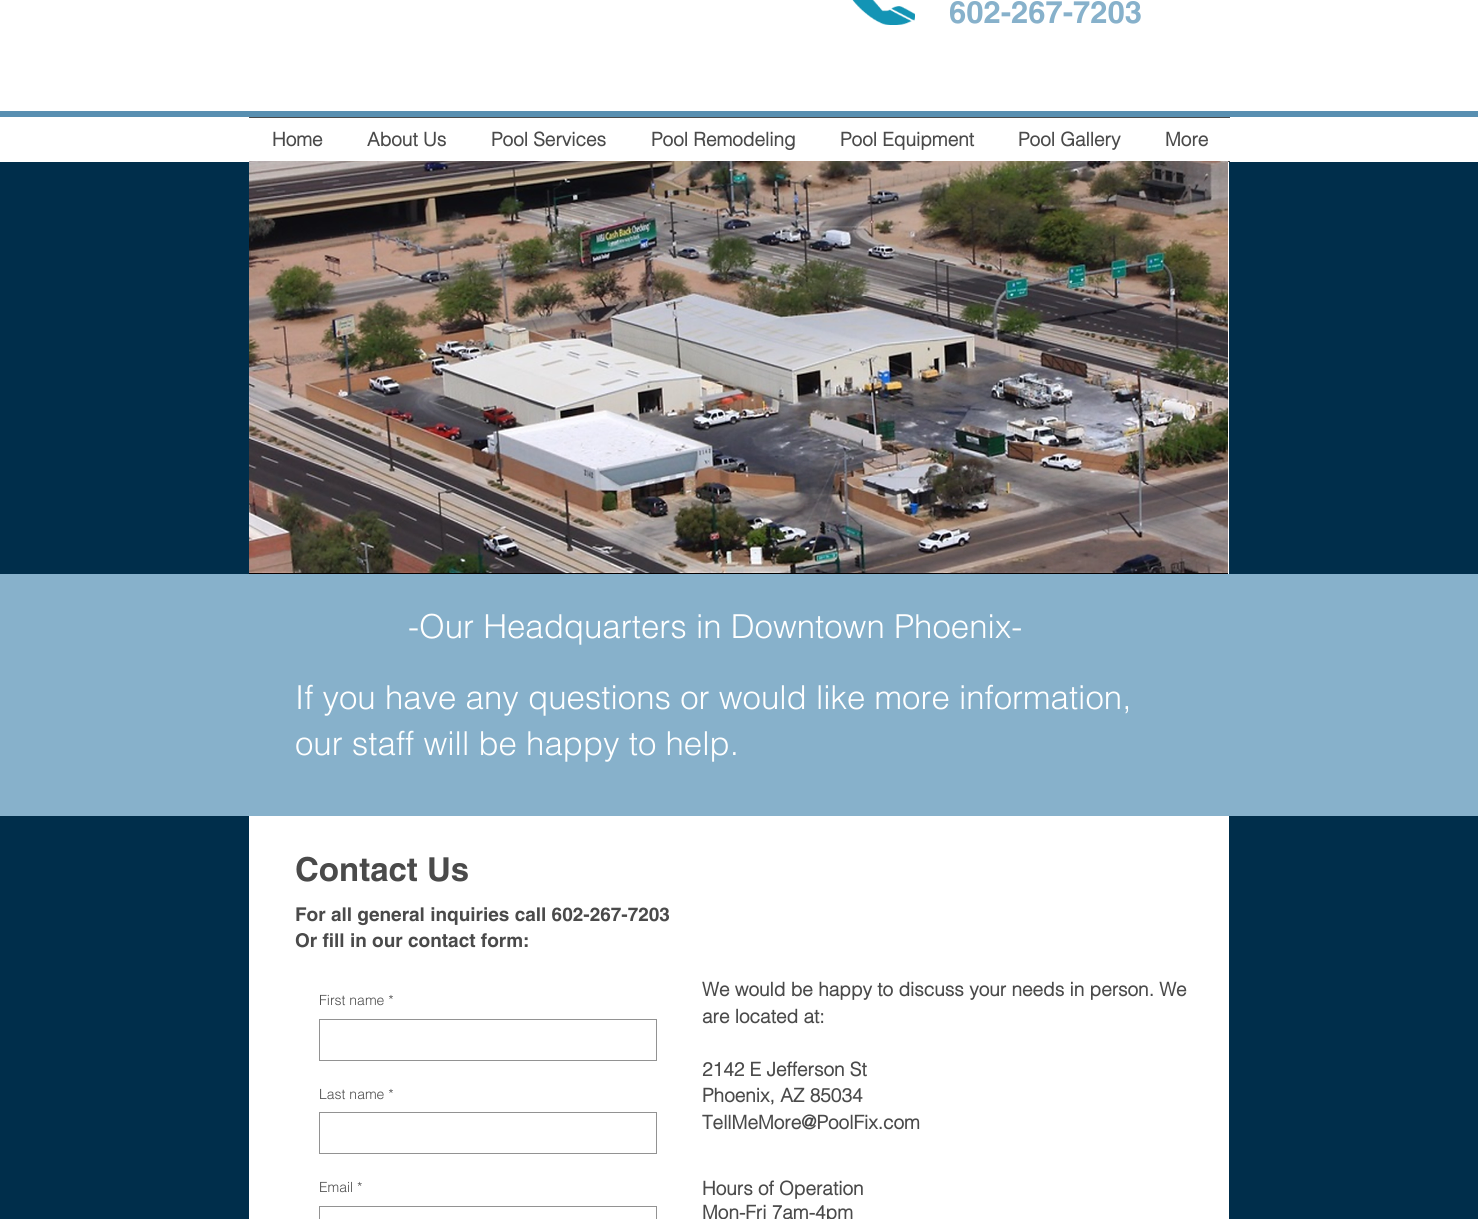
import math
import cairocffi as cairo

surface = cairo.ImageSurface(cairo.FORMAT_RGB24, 1478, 1219)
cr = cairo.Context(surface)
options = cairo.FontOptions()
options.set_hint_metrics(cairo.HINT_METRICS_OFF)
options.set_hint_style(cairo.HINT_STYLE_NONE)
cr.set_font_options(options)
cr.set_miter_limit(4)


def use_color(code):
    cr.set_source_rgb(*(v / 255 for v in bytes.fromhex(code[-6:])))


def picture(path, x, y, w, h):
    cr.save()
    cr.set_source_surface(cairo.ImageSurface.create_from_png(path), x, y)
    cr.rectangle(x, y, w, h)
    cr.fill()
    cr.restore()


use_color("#002e4b")
cr.paint()
use_color("#ffffff")
cr.rectangle(0, 0, 1478, 162)
cr.fill()
picture("img1.png", 852, 0, 63, 25)
cr.select_font_face("helvetica", cairo.FONT_SLANT_NORMAL, cairo.FONT_WEIGHT_BOLD)
cr.set_font_size(31)
use_color("#87b1cb")
cr.move_to(949, 23)
cr.show_text("602-267-7203")
use_color("#588fb1")
cr.rectangle(0, 111, 1478, 6)
cr.fill()
use_color("#4a4a4a")
cr.rectangle(249, 117, 981, 1)
cr.fill()
cr.rectangle(1228, 161, 2, 1)
cr.fill()
cr.select_font_face("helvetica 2", cairo.FONT_SLANT_NORMAL, cairo.FONT_WEIGHT_BOLD)
cr.set_font_size(19)
cr.move_to(272, 146)
cr.show_text("Home")
cr.move_to(367, 146)
cr.show_text("About Us")
cr.move_to(491, 146)
cr.show_text("Pool Services")
cr.move_to(651, 146)
cr.show_text("Pool Remodeling")
cr.move_to(840, 146)
cr.show_text("Pool Equipment")
cr.move_to(1018, 146)
cr.show_text("Pool Gallery")
cr.move_to(1165, 146)
cr.show_text("More")
use_color("#ffffff")
cr.rectangle(249, 162, 980, 1057)
cr.fill()
picture("img2.png", 249, 161, 979, 413)
use_color("#87b1cb")
cr.rectangle(0, 574, 1478, 242)
cr.fill()
cr.select_font_face("helvetica Light")
cr.set_font_size(33)
use_color("#ffffff")
cr.move_to(408, 638)
cr.show_text("-Our Headquarters in Downtown Phoenix-")
cr.move_to(295, 709)
cr.show_text("If you have any questions or would like more information,")
cr.move_to(295, 755)
cr.show_text("our staff will be happy to help.")
cr.select_font_face("helvetica", cairo.FONT_SLANT_NORMAL, cairo.FONT_WEIGHT_BOLD)
use_color("#4a4a4a")
cr.move_to(295, 881)
cr.show_text("Contact Us")
cr.set_font_size(19)
cr.move_to(295, 921)
cr.show_text("For all general inquiries call 602-267-7203")
cr.move_to(295, 947)
cr.show_text("Or fill in our contact form:")
cr.select_font_face("helvetica Light")
cr.set_font_size(14)
cr.move_to(319, 1005)
cr.show_text("First name *")
cr.rectangle(319.5, 1019.5, 337, 41)
use_color("#929292")
cr.set_line_width(1)
cr.stroke()
use_color("#4a4a4a")
cr.move_to(319, 1099)
cr.show_text("Last name *")
cr.rectangle(319.5, 1112.5, 337, 41)
use_color("#929292")
cr.stroke()
use_color("#4a4a4a")
cr.move_to(319, 1192)
cr.show_text("Email *")
cr.rectangle(319.5, 1206.5, 337, 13)
use_color("#929292")
cr.stroke()
cr.select_font_face("helvetica 2", cairo.FONT_SLANT_NORMAL, cairo.FONT_WEIGHT_BOLD)
cr.set_font_size(19)
use_color("#4a4a4a")
cr.move_to(702, 996)
cr.show_text("We would be happy to discuss your needs in person. We")
cr.move_to(702, 1023)
cr.show_text("are located at:")
cr.move_to(702, 1076)
cr.show_text("2142 E Jefferson St")
cr.move_to(702, 1102)
cr.show_text("Phoenix, AZ 85034")
cr.move_to(702, 1129)
cr.show_text("TellMeMore@PoolFix.com")
cr.move_to(702, 1195)
cr.show_text("Hours of Operation")
cr.move_to(702, 1219)
cr.show_text("Mon-Fri 7am-4pm")
surface.write_to_png("result.png")
